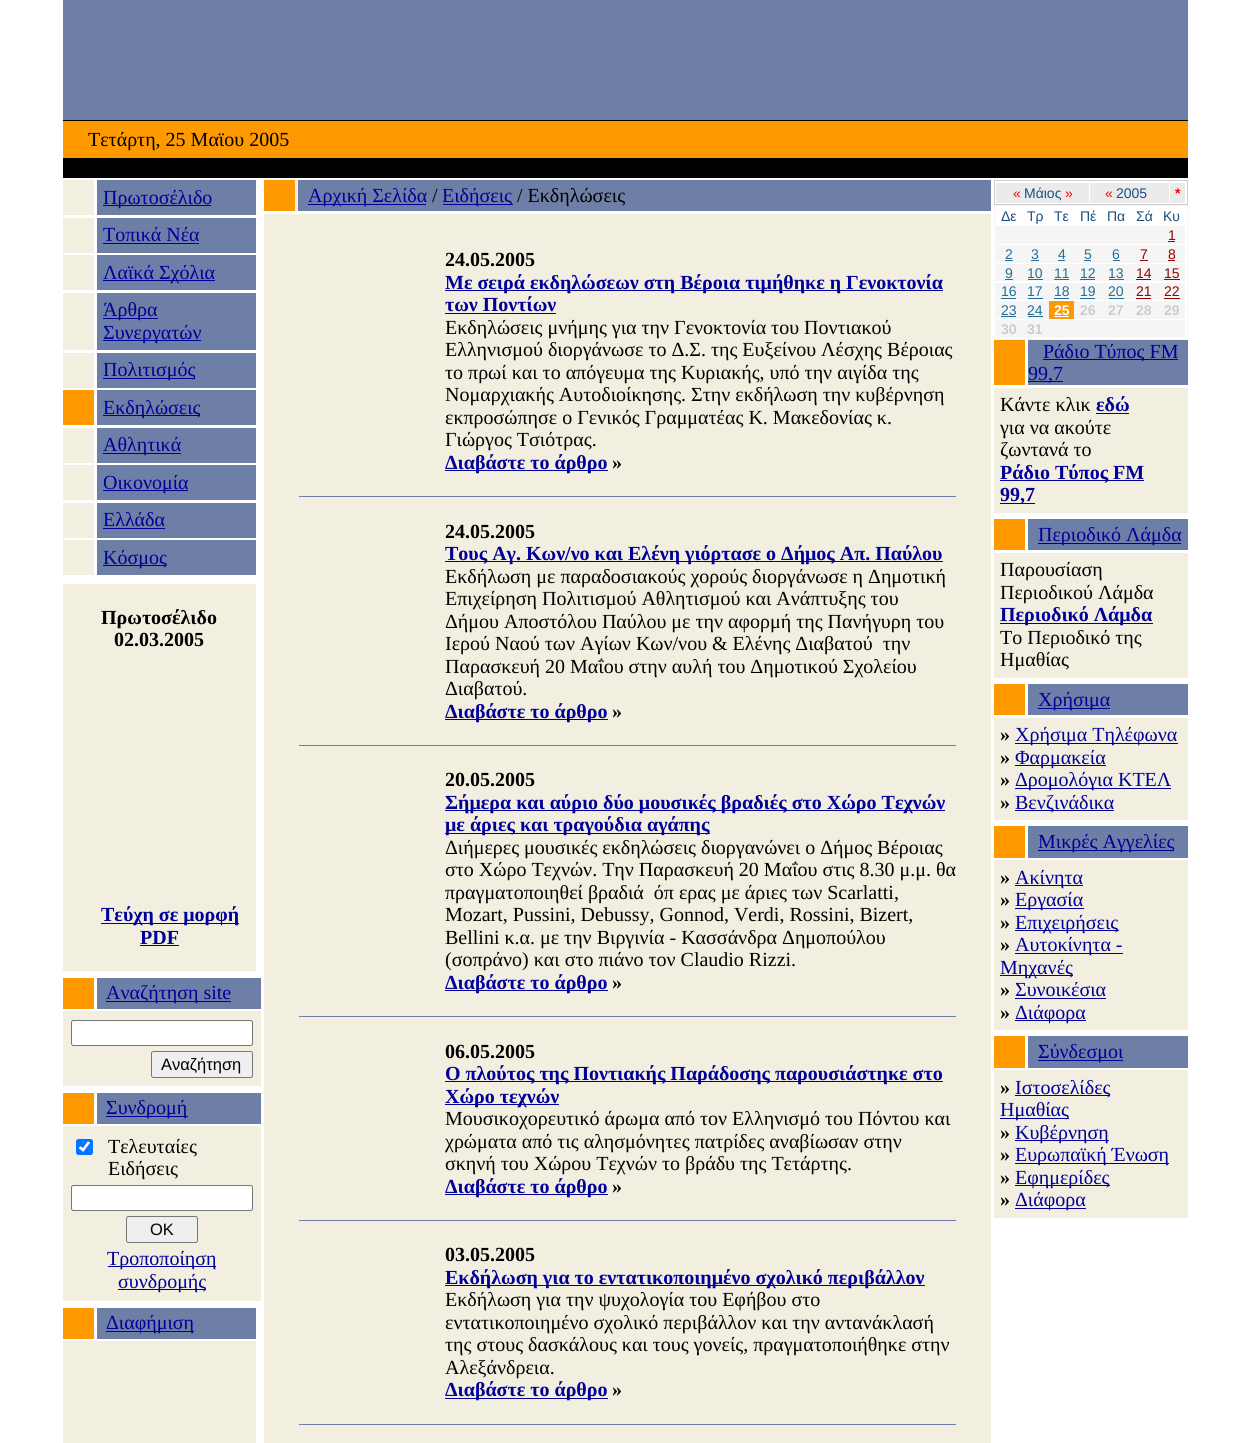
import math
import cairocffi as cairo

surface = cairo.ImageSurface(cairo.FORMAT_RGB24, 1249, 1443)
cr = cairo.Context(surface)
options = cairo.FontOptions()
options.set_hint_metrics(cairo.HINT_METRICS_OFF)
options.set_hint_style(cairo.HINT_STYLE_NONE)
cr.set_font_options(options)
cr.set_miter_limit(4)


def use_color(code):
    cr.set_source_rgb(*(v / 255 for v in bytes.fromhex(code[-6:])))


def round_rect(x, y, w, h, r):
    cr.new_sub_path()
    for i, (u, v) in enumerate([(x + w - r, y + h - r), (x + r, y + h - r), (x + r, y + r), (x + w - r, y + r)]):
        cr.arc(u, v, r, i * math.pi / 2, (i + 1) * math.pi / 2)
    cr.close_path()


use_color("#ffffff")
cr.paint()
use_color("#6d7fa7")
cr.rectangle(63, 0, 1125, 120)
cr.fill()
use_color("#000000")
cr.rectangle(63, 120, 1125, 1)
cr.fill()
use_color("#ff9900")
cr.rectangle(63, 121, 1125, 37)
cr.fill()
cr.select_font_face("Liberation Serif")
cr.set_font_size(20)
use_color("#000000")
cr.move_to(88, 146)
cr.show_text("Τετάρτη, 25 Μαϊου 2005")
cr.rectangle(63, 158, 1125, 20)
cr.fill()
use_color("#6d7fa7")
cr.rectangle(97, 180, 159, 35)
cr.fill()
use_color("#f2efe0")
cr.rectangle(63, 180, 31, 35)
cr.fill()
use_color("#000099")
cr.rectangle(103, 205, 108, 1)
cr.fill()
cr.move_to(103, 204)
cr.show_text("Πρωτοσέλιδο")
use_color("#6d7fa7")
cr.rectangle(97, 218, 159, 35)
cr.fill()
use_color("#f2efe0")
cr.rectangle(63, 218, 31, 35)
cr.fill()
use_color("#000099")
cr.move_to(103, 241)
cr.show_text("Τοπικά Νέα")
cr.rectangle(103, 243, 96, 1)
cr.fill()
use_color("#6d7fa7")
cr.rectangle(97, 255, 159, 35)
cr.fill()
use_color("#f2efe0")
cr.rectangle(63, 255, 31, 35)
cr.fill()
use_color("#000099")
cr.rectangle(103, 280, 112, 1)
cr.fill()
cr.move_to(103, 279)
cr.show_text("Λαϊκά Σχόλια")
use_color("#6d7fa7")
cr.rectangle(97, 293, 159, 57)
cr.fill()
use_color("#f2efe0")
cr.rectangle(63, 293, 31, 57)
cr.fill()
use_color("#000099")
cr.rectangle(103, 318, 55, 1)
cr.fill()
cr.move_to(103, 316)
cr.show_text("Άρθρα")
cr.rectangle(103, 340, 98, 1)
cr.fill()
cr.move_to(103, 339)
cr.show_text("Συνεργατών")
use_color("#6d7fa7")
cr.rectangle(97, 353, 159, 35)
cr.fill()
use_color("#f2efe0")
cr.rectangle(63, 353, 31, 35)
cr.fill()
use_color("#000099")
cr.rectangle(103, 378, 92, 1)
cr.fill()
cr.move_to(103, 376)
cr.show_text("Πολιτισμός")
use_color("#6d7fa7")
cr.rectangle(97, 390, 159, 35)
cr.fill()
use_color("#ff9900")
cr.rectangle(63, 390, 31, 35)
cr.fill()
use_color("#000099")
cr.rectangle(103, 415, 97, 1)
cr.fill()
cr.move_to(103, 414)
cr.show_text("Εκδηλώσεις")
use_color("#6d7fa7")
cr.rectangle(97, 428, 159, 35)
cr.fill()
use_color("#f2efe0")
cr.rectangle(63, 428, 31, 35)
cr.fill()
use_color("#000099")
cr.rectangle(103, 453, 78, 1)
cr.fill()
cr.move_to(103, 451)
cr.show_text("Αθλητικά")
use_color("#6d7fa7")
cr.rectangle(97, 465, 159, 35)
cr.fill()
use_color("#f2efe0")
cr.rectangle(63, 465, 31, 35)
cr.fill()
use_color("#000099")
cr.rectangle(103, 490, 85, 1)
cr.fill()
cr.move_to(103, 489)
cr.show_text("Οικονομία")
use_color("#6d7fa7")
cr.rectangle(97, 503, 159, 35)
cr.fill()
use_color("#f2efe0")
cr.rectangle(63, 503, 31, 35)
cr.fill()
use_color("#000099")
cr.move_to(103, 526)
cr.show_text("Ελλάδα")
cr.rectangle(103, 528, 62, 1)
cr.fill()
use_color("#6d7fa7")
cr.rectangle(97, 540, 159, 35)
cr.fill()
use_color("#f2efe0")
cr.rectangle(63, 540, 31, 35)
cr.fill()
use_color("#000099")
cr.rectangle(103, 565, 63, 1)
cr.fill()
cr.move_to(103, 564)
cr.show_text("Κόσμος")
use_color("#f2efe0")
cr.rectangle(63, 584, 193, 387)
cr.fill()
cr.select_font_face("Liberation Serif", cairo.FONT_SLANT_NORMAL, cairo.FONT_WEIGHT_BOLD)
use_color("#000000")
cr.move_to(101, 624)
cr.show_text("Πρωτοσέλιδο")
cr.move_to(114, 646)
cr.show_text("02.03.2005")
use_color("#000099")
cr.rectangle(101, 923, 138, 1)
cr.fill()
cr.move_to(101, 921)
cr.show_text("Τεύχη σε μορφή")
cr.move_to(140, 944)
cr.show_text("PDF")
cr.rectangle(140, 945, 39, 1)
cr.fill()
use_color("#6d7fa7")
cr.rectangle(97, 978, 164, 31)
cr.fill()
use_color("#ff9900")
cr.rectangle(63, 978, 31, 31)
cr.fill()
use_color("#000099")
cr.rectangle(106, 1001, 125, 1)
cr.fill()
cr.select_font_face("Liberation Serif")
cr.move_to(106, 999)
cr.show_text("Αναζήτηση site")
use_color("#f2efe0")
cr.rectangle(63, 1011, 198, 75)
cr.fill()
use_color("#ffffff")
round_rect(71.5, 1020.5, 181, 25, 2)
cr.fill_preserve()
use_color("#767676")
cr.set_line_width(1)
cr.stroke()
use_color("#efefef")
round_rect(151.5, 1051.5, 101, 26, 2)
cr.fill_preserve()
use_color("#767676")
cr.stroke()
cr.select_font_face("Liberation Sans")
cr.set_font_size(16.5)
use_color("#000000")
cr.move_to(161, 1070)
cr.show_text("Αναζήτηση")
use_color("#6d7fa7")
cr.rectangle(97, 1093, 164, 31)
cr.fill()
use_color("#ff9900")
cr.rectangle(63, 1093, 31, 31)
cr.fill()
use_color("#000099")
cr.rectangle(106, 1116, 82, 1)
cr.fill()
cr.select_font_face("Liberation Serif")
cr.set_font_size(20)
cr.move_to(106, 1114)
cr.show_text("Συνδρομή")
use_color("#f2efe0")
cr.rectangle(63, 1126, 198, 175)
cr.fill()
use_color("#0075ff")
round_rect(76, 1139, 17, 16, 2.5)
cr.fill()
cr.new_path()
cr.move_to(79.5, 1147)
cr.line_to(83, 1150)
cr.line_to(89, 1142)
use_color("#ffffff")
cr.set_line_width(2.6)
cr.stroke()
use_color("#000000")
cr.move_to(108, 1153)
cr.show_text("Τελευταίες")
cr.move_to(108, 1175)
cr.show_text("Ειδήσεις")
use_color("#ffffff")
round_rect(71.5, 1185.5, 181, 25, 2)
cr.fill_preserve()
use_color("#767676")
cr.set_line_width(1)
cr.stroke()
use_color("#efefef")
round_rect(126.5, 1216.5, 71, 26, 2)
cr.fill_preserve()
use_color("#767676")
cr.stroke()
cr.select_font_face("Liberation Sans")
cr.set_font_size(16.5)
use_color("#000000")
cr.move_to(150, 1235)
cr.show_text("OK")
use_color("#000099")
cr.rectangle(108, 1266, 108, 1)
cr.fill()
cr.select_font_face("Liberation Serif")
cr.set_font_size(20)
cr.move_to(107, 1265)
cr.show_text("Τροποποίηση")
cr.rectangle(118, 1289, 88, 1)
cr.fill()
cr.move_to(118, 1288)
cr.show_text("συνδρομής")
use_color("#6d7fa7")
cr.rectangle(97, 1308, 159, 31)
cr.fill()
use_color("#ff9900")
cr.rectangle(63, 1308, 31, 31)
cr.fill()
use_color("#000099")
cr.rectangle(106, 1331, 88, 1)
cr.fill()
cr.move_to(106, 1329)
cr.show_text("Διαφήμιση")
use_color("#f2efe0")
cr.rectangle(63, 1341, 193, 102)
cr.fill()
cr.rectangle(264, 180, 727, 1263)
cr.fill()
use_color("#ff9900")
cr.rectangle(264, 180, 31, 31)
cr.fill()
use_color("#6d7fa7")
cr.rectangle(298, 180, 693, 31)
cr.fill()
use_color("#000099")
cr.rectangle(308, 204, 118, 1)
cr.fill()
cr.move_to(308, 202)
cr.show_text("Αρχική Σελίδα")
use_color("#000000")
cr.move_to(432, 202)
cr.show_text("/")
use_color("#000099")
cr.rectangle(443, 204, 70, 1)
cr.fill()
cr.move_to(442, 202)
cr.show_text("Ειδήσεις")
use_color("#000000")
cr.move_to(517, 202)
cr.show_text("/ Εκδηλώσεις")
use_color("#ffffff")
cr.rectangle(264, 211, 727, 3)
cr.fill()
cr.select_font_face("Liberation Serif", cairo.FONT_SLANT_NORMAL, cairo.FONT_WEIGHT_BOLD)
use_color("#000000")
cr.move_to(445, 266)
cr.show_text("24.05.2005")
use_color("#000099")
cr.rectangle(445, 290, 498, 1)
cr.fill()
cr.move_to(445, 289)
cr.show_text("Με σειρά εκδηλώσεων στη Βέροια τιμήθηκε η Γενοκτονία")
cr.move_to(445, 311)
cr.show_text("των Ποντίων")
cr.rectangle(445, 313, 111, 1)
cr.fill()
cr.select_font_face("Liberation Serif")
use_color("#000000")
cr.move_to(445, 334)
cr.show_text("Εκδηλώσεις μνήμης για την Γενοκτονία του Ποντιακού")
cr.move_to(445, 356)
cr.show_text("Ελληνισμού διοργάνωσε το Δ.Σ. της Ευξείνου Λέσχης Βέροιας")
cr.move_to(445, 379)
cr.show_text("το πρωί και το απόγευμα της Κυριακής, υπό την αιγίδα της")
cr.move_to(445, 401)
cr.show_text("Νομαρχιακής Αυτοδιοίκησης. Στην εκδήλωση την κυβέρνηση")
cr.move_to(445, 424)
cr.show_text("εκπροσώπησε ο Γενικός Γραμματέας Κ. Μακεδονίας κ.")
cr.move_to(445, 446)
cr.show_text("Γιώργος Τσιότρας.")
use_color("#000099")
cr.rectangle(445, 470, 163, 1)
cr.fill()
cr.select_font_face("Liberation Serif", cairo.FONT_SLANT_NORMAL, cairo.FONT_WEIGHT_BOLD)
cr.move_to(445, 469)
cr.show_text("Διαβάστε το άρθρο")
use_color("#000000")
cr.move_to(612, 469)
cr.show_text("»")
use_color("#6d7fa7")
cr.rectangle(299, 496, 657, 1)
cr.fill()
use_color("#000000")
cr.move_to(445, 538)
cr.show_text("24.05.2005")
use_color("#000099")
cr.rectangle(445, 561, 498, 1)
cr.fill()
cr.move_to(445, 560)
cr.show_text("Τους Αγ. Κων/νο και Ελένη γιόρτασε ο Δήμος Απ. Παύλου")
cr.select_font_face("Liberation Serif")
use_color("#000000")
cr.move_to(445, 583)
cr.show_text("Εκδήλωση με παραδοσιακούς χορούς διοργάνωσε η Δημοτική")
cr.move_to(445, 605)
cr.show_text("Επιχείρηση Πολιτισμού Αθλητισμού και Ανάπτυξης του")
cr.move_to(445, 628)
cr.show_text("Δήμου Αποστόλου Παύλου με την αφορμή της Πανήγυρη του")
cr.move_to(445, 650)
cr.show_text("Ιερού Ναού των Αγίων Κων/νου & Ελένης Διαβατού  την")
cr.move_to(445, 673)
cr.show_text("Παρασκευή 20 Μαΐου στην αυλή του Δημοτικού Σχολείου")
cr.move_to(445, 695)
cr.show_text("Διαβατού.")
use_color("#000099")
cr.rectangle(445, 719, 163, 1)
cr.fill()
cr.select_font_face("Liberation Serif", cairo.FONT_SLANT_NORMAL, cairo.FONT_WEIGHT_BOLD)
cr.move_to(445, 718)
cr.show_text("Διαβάστε το άρθρο")
use_color("#000000")
cr.move_to(612, 718)
cr.show_text("»")
use_color("#6d7fa7")
cr.rectangle(299, 745, 657, 1)
cr.fill()
use_color("#000000")
cr.move_to(445, 786)
cr.show_text("20.05.2005")
use_color("#000099")
cr.rectangle(445, 810, 500, 1)
cr.fill()
cr.move_to(445, 809)
cr.show_text("Σήμερα και αύριο δύο μουσικές βραδιές στο Χώρο Τεχνών")
cr.rectangle(445, 833, 265, 1)
cr.fill()
cr.move_to(445, 831)
cr.show_text("με άριες και τραγούδια αγάπης")
cr.select_font_face("Liberation Serif")
use_color("#000000")
cr.move_to(445, 854)
cr.show_text("Διήμερες μουσικές εκδηλώσεις διοργανώνει ο Δήμος Βέροιας")
cr.move_to(445, 876)
cr.show_text("στο Χώρο Τεχνών. Την Παρασκευή 20 Μαΐου στις 8.30 μ.μ. θα")
cr.move_to(445, 899)
cr.show_text("πραγματοποιηθεί βραδιά  όπ ερας με άριες των Scarlatti,")
cr.move_to(445, 921)
cr.show_text("Mozart, Pussini, Debussy, Gonnod, Verdi, Rossini, Bizert,")
cr.move_to(445, 944)
cr.show_text("Bellini κ.α. με την Βιργινία - Κασσάνδρα Δημοπούλου")
cr.move_to(445, 966)
cr.show_text("(σοπράνο) και στο πιάνο τον Claudio Rizzi.")
use_color("#000099")
cr.rectangle(445, 990, 163, 1)
cr.fill()
cr.select_font_face("Liberation Serif", cairo.FONT_SLANT_NORMAL, cairo.FONT_WEIGHT_BOLD)
cr.move_to(445, 989)
cr.show_text("Διαβάστε το άρθρο")
use_color("#000000")
cr.move_to(612, 989)
cr.show_text("»")
use_color("#6d7fa7")
cr.rectangle(299, 1016, 657, 1)
cr.fill()
use_color("#000000")
cr.move_to(445, 1058)
cr.show_text("06.05.2005")
use_color("#000099")
cr.rectangle(445, 1081, 498, 1)
cr.fill()
cr.move_to(445, 1080)
cr.show_text("Ο πλούτος της Ποντιακής Παράδοσης παρουσιάστηκε στο")
cr.rectangle(445, 1104, 114, 1)
cr.fill()
cr.move_to(445, 1103)
cr.show_text("Χώρο τεχνών")
cr.select_font_face("Liberation Serif")
use_color("#000000")
cr.move_to(445, 1125)
cr.show_text("Μουσικοχορευτικό άρωμα από τον Ελληνισμό του Πόντου και")
cr.move_to(445, 1148)
cr.show_text("χρώματα από τις αλησμόνητες πατρίδες αναβίωσαν στην")
cr.move_to(445, 1170)
cr.show_text("σκηνή του Χώρου Τεχνών το βράδυ της Τετάρτης.")
use_color("#000099")
cr.rectangle(445, 1194, 163, 1)
cr.fill()
cr.select_font_face("Liberation Serif", cairo.FONT_SLANT_NORMAL, cairo.FONT_WEIGHT_BOLD)
cr.move_to(445, 1193)
cr.show_text("Διαβάστε το άρθρο")
use_color("#000000")
cr.move_to(612, 1193)
cr.show_text("»")
use_color("#6d7fa7")
cr.rectangle(299, 1220, 657, 1)
cr.fill()
use_color("#000000")
cr.move_to(445, 1261)
cr.show_text("03.05.2005")
use_color("#000099")
cr.rectangle(445, 1285, 480, 1)
cr.fill()
cr.move_to(445, 1284)
cr.show_text("Εκδήλωση για το εντατικοποιημένο σχολικό περιβάλλον")
cr.select_font_face("Liberation Serif")
use_color("#000000")
cr.move_to(445, 1306)
cr.show_text("Εκδήλωση για την ψυχολογία του Εφήβου στο")
cr.move_to(445, 1329)
cr.show_text("εντατικοποιημένο σχολικό περιβάλλον και την αντανάκλασή")
cr.move_to(445, 1351)
cr.show_text("της στους δασκάλους και τους γονείς, πραγματοποιήθηκε στην")
cr.move_to(445, 1374)
cr.show_text("Αλεξάνδρεια.")
use_color("#000099")
cr.rectangle(445, 1398, 163, 1)
cr.fill()
cr.select_font_face("Liberation Serif", cairo.FONT_SLANT_NORMAL, cairo.FONT_WEIGHT_BOLD)
cr.move_to(445, 1396)
cr.show_text("Διαβάστε το άρθρο")
use_color("#000000")
cr.move_to(612, 1396)
cr.show_text("»")
use_color("#6d7fa7")
cr.rectangle(299, 1424, 657, 1)
cr.fill()
cr.rectangle(994.5, 180.5, 193, 24)
use_color("#cccccc")
cr.stroke()
use_color("#ebebeb")
cr.rectangle(996, 183, 93, 20)
cr.fill()
cr.select_font_face("Liberation Sans")
cr.set_font_size(14)
use_color("#ff0000")
cr.move_to(1013, 198)
cr.show_text("«")
use_color("#1a4d80")
cr.move_to(1024, 198)
cr.show_text("Μάιος")
use_color("#ff0000")
cr.move_to(1065, 198)
cr.show_text("»")
use_color("#ebebeb")
cr.rectangle(1090, 183, 79, 20)
cr.fill()
use_color("#ff0000")
cr.move_to(1105, 198)
cr.show_text("«")
use_color("#1a4d80")
cr.move_to(1116, 198)
cr.show_text("2005")
use_color("#ebebeb")
cr.rectangle(1170, 183, 15, 20)
cr.fill()
cr.select_font_face("Liberation Sans", cairo.FONT_SLANT_NORMAL, cairo.FONT_WEIGHT_BOLD)
use_color("#ff0000")
cr.move_to(1175, 198)
cr.show_text("*")
cr.rectangle(994.5, 205.5, 193, 134)
use_color("#f5f5f5")
cr.stroke()
cr.select_font_face("Liberation Sans")
use_color("#1a4d80")
cr.move_to(1001, 221)
cr.show_text("Δε")
cr.move_to(1027, 221)
cr.show_text("Τρ")
cr.move_to(1054, 221)
cr.show_text("Τε")
cr.move_to(1080, 221)
cr.show_text("Πέ")
cr.move_to(1107, 221)
cr.show_text("Πα")
cr.move_to(1136, 221)
cr.show_text("Σά")
cr.move_to(1163, 221)
cr.show_text("Κυ")
use_color("#f5f5f5")
cr.rectangle(996, 226, 189, 18)
cr.fill()
use_color("#970000")
cr.move_to(1168, 240)
cr.show_text("1")
cr.rectangle(1168, 241, 7, 1)
cr.fill()
use_color("#f5f5f5")
cr.rectangle(996, 245, 189, 18)
cr.fill()
use_color("#1f6f9a")
cr.move_to(1005, 259)
cr.show_text("2")
cr.rectangle(1005, 260, 8, 1)
cr.fill()
cr.move_to(1031, 259)
cr.show_text("3")
cr.rectangle(1031, 260, 8, 1)
cr.fill()
cr.move_to(1058, 259)
cr.show_text("4")
cr.rectangle(1058, 260, 7, 1)
cr.fill()
cr.move_to(1084, 259)
cr.show_text("5")
cr.rectangle(1084, 260, 7, 1)
cr.fill()
cr.move_to(1112, 259)
cr.show_text("6")
cr.rectangle(1113, 260, 7, 1)
cr.fill()
use_color("#970000")
cr.move_to(1140, 259)
cr.show_text("7")
cr.rectangle(1140, 260, 8, 1)
cr.fill()
cr.move_to(1168, 259)
cr.show_text("8")
cr.rectangle(1168, 260, 7, 1)
cr.fill()
use_color("#f5f5f5")
cr.rectangle(996, 264, 189, 17)
cr.fill()
use_color("#1f6f9a")
cr.move_to(1005, 278)
cr.show_text("9")
cr.rectangle(1005, 279, 8, 1)
cr.fill()
cr.move_to(1027, 278)
cr.show_text("10")
cr.rectangle(1028, 279, 15, 1)
cr.fill()
cr.move_to(1054, 278)
cr.show_text("11")
cr.rectangle(1054, 279, 15, 1)
cr.fill()
cr.move_to(1080, 278)
cr.show_text("12")
cr.rectangle(1080, 279, 15, 1)
cr.fill()
cr.move_to(1108, 278)
cr.show_text("13")
cr.rectangle(1109, 279, 15, 1)
cr.fill()
use_color("#970000")
cr.move_to(1136, 278)
cr.show_text("14")
cr.rectangle(1136, 279, 15, 1)
cr.fill()
cr.move_to(1164, 278)
cr.show_text("15")
cr.rectangle(1164, 279, 16, 1)
cr.fill()
use_color("#f5f5f5")
cr.rectangle(996, 283, 189, 17)
cr.fill()
use_color("#1f6f9a")
cr.move_to(1001, 296)
cr.show_text("16")
cr.rectangle(1001, 298, 15, 1)
cr.fill()
cr.move_to(1027, 296)
cr.show_text("17")
cr.rectangle(1028, 298, 15, 1)
cr.fill()
cr.move_to(1054, 296)
cr.show_text("18")
cr.rectangle(1054, 298, 15, 1)
cr.fill()
cr.move_to(1080, 296)
cr.show_text("19")
cr.rectangle(1080, 298, 15, 1)
cr.fill()
cr.move_to(1108, 296)
cr.show_text("20")
cr.rectangle(1109, 298, 15, 1)
cr.fill()
use_color("#970000")
cr.move_to(1136, 296)
cr.show_text("21")
cr.rectangle(1136, 298, 15, 1)
cr.fill()
cr.move_to(1164, 296)
cr.show_text("22")
cr.rectangle(1164, 298, 16, 1)
cr.fill()
use_color("#f5f5f5")
cr.rectangle(996, 301, 189, 18)
cr.fill()
use_color("#1f6f9a")
cr.move_to(1001, 315)
cr.show_text("23")
cr.rectangle(1001, 316, 15, 1)
cr.fill()
cr.move_to(1027, 315)
cr.show_text("24")
cr.rectangle(1028, 316, 15, 1)
cr.fill()
use_color("#ff9900")
cr.rectangle(1049, 301, 25, 18)
cr.fill()
cr.select_font_face("Liberation Sans", cairo.FONT_SLANT_NORMAL, cairo.FONT_WEIGHT_BOLD)
use_color("#ffffff")
cr.move_to(1054, 315)
cr.show_text("25")
cr.rectangle(1054, 316, 15, 1)
cr.fill()
use_color("#cccccc")
cr.move_to(1080, 315)
cr.show_text("26")
cr.move_to(1108, 315)
cr.show_text("27")
cr.move_to(1136, 315)
cr.show_text("28")
cr.move_to(1164, 315)
cr.show_text("29")
use_color("#f5f5f5")
cr.rectangle(996, 320, 189, 18)
cr.fill()
use_color("#cccccc")
cr.move_to(1001, 334)
cr.show_text("30")
cr.move_to(1027, 334)
cr.show_text("31")
use_color("#6d7fa7")
cr.rectangle(1028, 340, 160, 45)
cr.fill()
use_color("#ff9900")
cr.rectangle(994, 340, 31, 45)
cr.fill()
use_color("#000099")
cr.rectangle(1043, 359, 135, 1)
cr.fill()
cr.select_font_face("Liberation Serif")
cr.set_font_size(20)
cr.move_to(1043, 358)
cr.show_text("Ράδιο Τύπος FM")
cr.rectangle(1028, 381, 35, 1)
cr.fill()
cr.move_to(1028, 380)
cr.show_text("99,7")
use_color("#f2efe0")
cr.rectangle(994, 388, 194, 125)
cr.fill()
use_color("#000000")
cr.move_to(1000, 411)
cr.show_text("Κάντε κλικ")
cr.select_font_face("Liberation Serif", cairo.FONT_SLANT_NORMAL, cairo.FONT_WEIGHT_BOLD)
use_color("#000099")
cr.move_to(1096, 411)
cr.show_text("εδώ")
cr.rectangle(1096, 413, 33, 1)
cr.fill()
cr.select_font_face("Liberation Serif")
use_color("#000000")
cr.move_to(1000, 434)
cr.show_text("για να ακούτε")
cr.move_to(1000, 456)
cr.show_text("ζωντανά το")
use_color("#000099")
cr.rectangle(1000, 480, 144, 1)
cr.fill()
cr.select_font_face("Liberation Serif", cairo.FONT_SLANT_NORMAL, cairo.FONT_WEIGHT_BOLD)
cr.move_to(1000, 479)
cr.show_text("Ράδιο Τύπος FM")
cr.rectangle(1000, 503, 35, 1)
cr.fill()
cr.move_to(1000, 501)
cr.show_text("99,7")
use_color("#6d7fa7")
cr.rectangle(1028, 519, 160, 31)
cr.fill()
use_color("#ff9900")
cr.rectangle(994, 519, 31, 31)
cr.fill()
use_color("#000099")
cr.rectangle(1038, 543, 143, 1)
cr.fill()
cr.select_font_face("Liberation Serif")
cr.move_to(1038, 541)
cr.show_text("Περιοδικό Λάμδα")
use_color("#f2efe0")
cr.rectangle(994, 553, 194, 125)
cr.fill()
use_color("#000000")
cr.move_to(1000, 576)
cr.show_text("Παρουσίαση")
cr.move_to(1000, 599)
cr.show_text("Περιοδικού Λάμδα")
use_color("#000099")
cr.rectangle(1000, 623, 153, 1)
cr.fill()
cr.select_font_face("Liberation Serif", cairo.FONT_SLANT_NORMAL, cairo.FONT_WEIGHT_BOLD)
cr.move_to(1000, 621)
cr.show_text("Περιοδικό Λάμδα")
cr.select_font_face("Liberation Serif")
use_color("#000000")
cr.move_to(1000, 644)
cr.show_text("Το Περιοδικό της")
cr.move_to(1000, 666)
cr.show_text("Ημαθίας")
use_color("#6d7fa7")
cr.rectangle(1028, 684, 160, 31)
cr.fill()
use_color("#ff9900")
cr.rectangle(994, 684, 31, 31)
cr.fill()
use_color("#000099")
cr.rectangle(1038, 708, 72, 1)
cr.fill()
cr.move_to(1038, 706)
cr.show_text("Χρήσιμα")
use_color("#f2efe0")
cr.rectangle(994, 718, 194, 102)
cr.fill()
cr.select_font_face("Liberation Serif", cairo.FONT_SLANT_NORMAL, cairo.FONT_WEIGHT_BOLD)
use_color("#000000")
cr.move_to(1000, 741)
cr.show_text("»")
use_color("#000099")
cr.rectangle(1015, 743, 163, 1)
cr.fill()
cr.select_font_face("Liberation Serif")
cr.move_to(1015, 741)
cr.show_text("Χρήσιμα Τηλέφωνα")
cr.select_font_face("Liberation Serif", cairo.FONT_SLANT_NORMAL, cairo.FONT_WEIGHT_BOLD)
use_color("#000000")
cr.move_to(1000, 764)
cr.show_text("»")
use_color("#000099")
cr.rectangle(1015, 765, 91, 1)
cr.fill()
cr.select_font_face("Liberation Serif")
cr.move_to(1015, 764)
cr.show_text("Φαρμακεία")
cr.select_font_face("Liberation Serif", cairo.FONT_SLANT_NORMAL, cairo.FONT_WEIGHT_BOLD)
use_color("#000000")
cr.move_to(1000, 786)
cr.show_text("»")
use_color("#000099")
cr.rectangle(1015, 788, 156, 1)
cr.fill()
cr.select_font_face("Liberation Serif")
cr.move_to(1015, 786)
cr.show_text("Δρομολόγια ΚΤΕΛ")
cr.select_font_face("Liberation Serif", cairo.FONT_SLANT_NORMAL, cairo.FONT_WEIGHT_BOLD)
use_color("#000000")
cr.move_to(1000, 809)
cr.show_text("»")
use_color("#000099")
cr.rectangle(1015, 810, 99, 1)
cr.fill()
cr.select_font_face("Liberation Serif")
cr.move_to(1015, 809)
cr.show_text("Βενζινάδικα")
use_color("#6d7fa7")
cr.rectangle(1028, 826, 160, 32)
cr.fill()
use_color("#ff9900")
cr.rectangle(994, 826, 31, 32)
cr.fill()
use_color("#000099")
cr.rectangle(1038, 850, 136, 1)
cr.fill()
cr.move_to(1038, 848)
cr.show_text("Μικρές Αγγελίες")
use_color("#f2efe0")
cr.rectangle(994, 860, 194, 170)
cr.fill()
cr.select_font_face("Liberation Serif", cairo.FONT_SLANT_NORMAL, cairo.FONT_WEIGHT_BOLD)
use_color("#000000")
cr.move_to(1000, 884)
cr.show_text("»")
use_color("#000099")
cr.rectangle(1015, 885, 68, 1)
cr.fill()
cr.select_font_face("Liberation Serif")
cr.move_to(1015, 884)
cr.show_text("Ακίνητα")
cr.select_font_face("Liberation Serif", cairo.FONT_SLANT_NORMAL, cairo.FONT_WEIGHT_BOLD)
use_color("#000000")
cr.move_to(1000, 906)
cr.show_text("»")
use_color("#000099")
cr.rectangle(1015, 908, 69, 1)
cr.fill()
cr.select_font_face("Liberation Serif")
cr.move_to(1015, 906)
cr.show_text("Εργασία")
cr.select_font_face("Liberation Serif", cairo.FONT_SLANT_NORMAL, cairo.FONT_WEIGHT_BOLD)
use_color("#000000")
cr.move_to(1000, 929)
cr.show_text("»")
use_color("#000099")
cr.rectangle(1015, 930, 104, 1)
cr.fill()
cr.select_font_face("Liberation Serif")
cr.move_to(1015, 929)
cr.show_text("Επιχειρήσεις")
cr.select_font_face("Liberation Serif", cairo.FONT_SLANT_NORMAL, cairo.FONT_WEIGHT_BOLD)
use_color("#000000")
cr.move_to(1000, 951)
cr.show_text("»")
use_color("#000099")
cr.rectangle(1015, 953, 108, 1)
cr.fill()
cr.select_font_face("Liberation Serif")
cr.move_to(1015, 951)
cr.show_text("Αυτοκίνητα -")
cr.rectangle(1000, 975, 73, 1)
cr.fill()
cr.move_to(1000, 974)
cr.show_text("Μηχανές")
cr.select_font_face("Liberation Serif", cairo.FONT_SLANT_NORMAL, cairo.FONT_WEIGHT_BOLD)
use_color("#000000")
cr.move_to(1000, 996)
cr.show_text("»")
cr.select_font_face("Liberation Serif")
use_color("#000099")
cr.move_to(1015, 996)
cr.show_text("Συνοικέσια")
cr.rectangle(1015, 998, 91, 1)
cr.fill()
cr.select_font_face("Liberation Serif", cairo.FONT_SLANT_NORMAL, cairo.FONT_WEIGHT_BOLD)
use_color("#000000")
cr.move_to(1000, 1019)
cr.show_text("»")
use_color("#000099")
cr.rectangle(1015, 1020, 71, 1)
cr.fill()
cr.select_font_face("Liberation Serif")
cr.move_to(1015, 1019)
cr.show_text("Διάφορα")
use_color("#6d7fa7")
cr.rectangle(1028, 1036, 160, 32)
cr.fill()
use_color("#ff9900")
cr.rectangle(994, 1036, 31, 32)
cr.fill()
use_color("#000099")
cr.rectangle(1038, 1060, 85, 1)
cr.fill()
cr.move_to(1038, 1058)
cr.show_text("Σύνδεσμοι")
use_color("#f2efe0")
cr.rectangle(994, 1070, 194, 148)
cr.fill()
cr.select_font_face("Liberation Serif", cairo.FONT_SLANT_NORMAL, cairo.FONT_WEIGHT_BOLD)
use_color("#000000")
cr.move_to(1000, 1094)
cr.show_text("»")
use_color("#000099")
cr.rectangle(1015, 1095, 95, 1)
cr.fill()
cr.select_font_face("Liberation Serif")
cr.move_to(1015, 1094)
cr.show_text("Ιστοσελίδες")
cr.rectangle(1000, 1118, 69, 1)
cr.fill()
cr.move_to(1000, 1116)
cr.show_text("Ημαθίας")
cr.select_font_face("Liberation Serif", cairo.FONT_SLANT_NORMAL, cairo.FONT_WEIGHT_BOLD)
use_color("#000000")
cr.move_to(1000, 1139)
cr.show_text("»")
use_color("#000099")
cr.rectangle(1015, 1140, 94, 1)
cr.fill()
cr.select_font_face("Liberation Serif")
cr.move_to(1015, 1139)
cr.show_text("Κυβέρνηση")
cr.select_font_face("Liberation Serif", cairo.FONT_SLANT_NORMAL, cairo.FONT_WEIGHT_BOLD)
use_color("#000000")
cr.move_to(1000, 1161)
cr.show_text("»")
use_color("#000099")
cr.rectangle(1015, 1163, 154, 1)
cr.fill()
cr.select_font_face("Liberation Serif")
cr.move_to(1015, 1161)
cr.show_text("Ευρωπαϊκή Ένωση")
cr.select_font_face("Liberation Serif", cairo.FONT_SLANT_NORMAL, cairo.FONT_WEIGHT_BOLD)
use_color("#000000")
cr.move_to(1000, 1184)
cr.show_text("»")
use_color("#000099")
cr.rectangle(1015, 1185, 95, 1)
cr.fill()
cr.select_font_face("Liberation Serif")
cr.move_to(1015, 1184)
cr.show_text("Εφημερίδες")
cr.select_font_face("Liberation Serif", cairo.FONT_SLANT_NORMAL, cairo.FONT_WEIGHT_BOLD)
use_color("#000000")
cr.move_to(1000, 1206)
cr.show_text("»")
use_color("#000099")
cr.rectangle(1015, 1208, 71, 1)
cr.fill()
cr.select_font_face("Liberation Serif")
cr.move_to(1015, 1206)
cr.show_text("Διάφορα")
surface.write_to_png("result.png")
